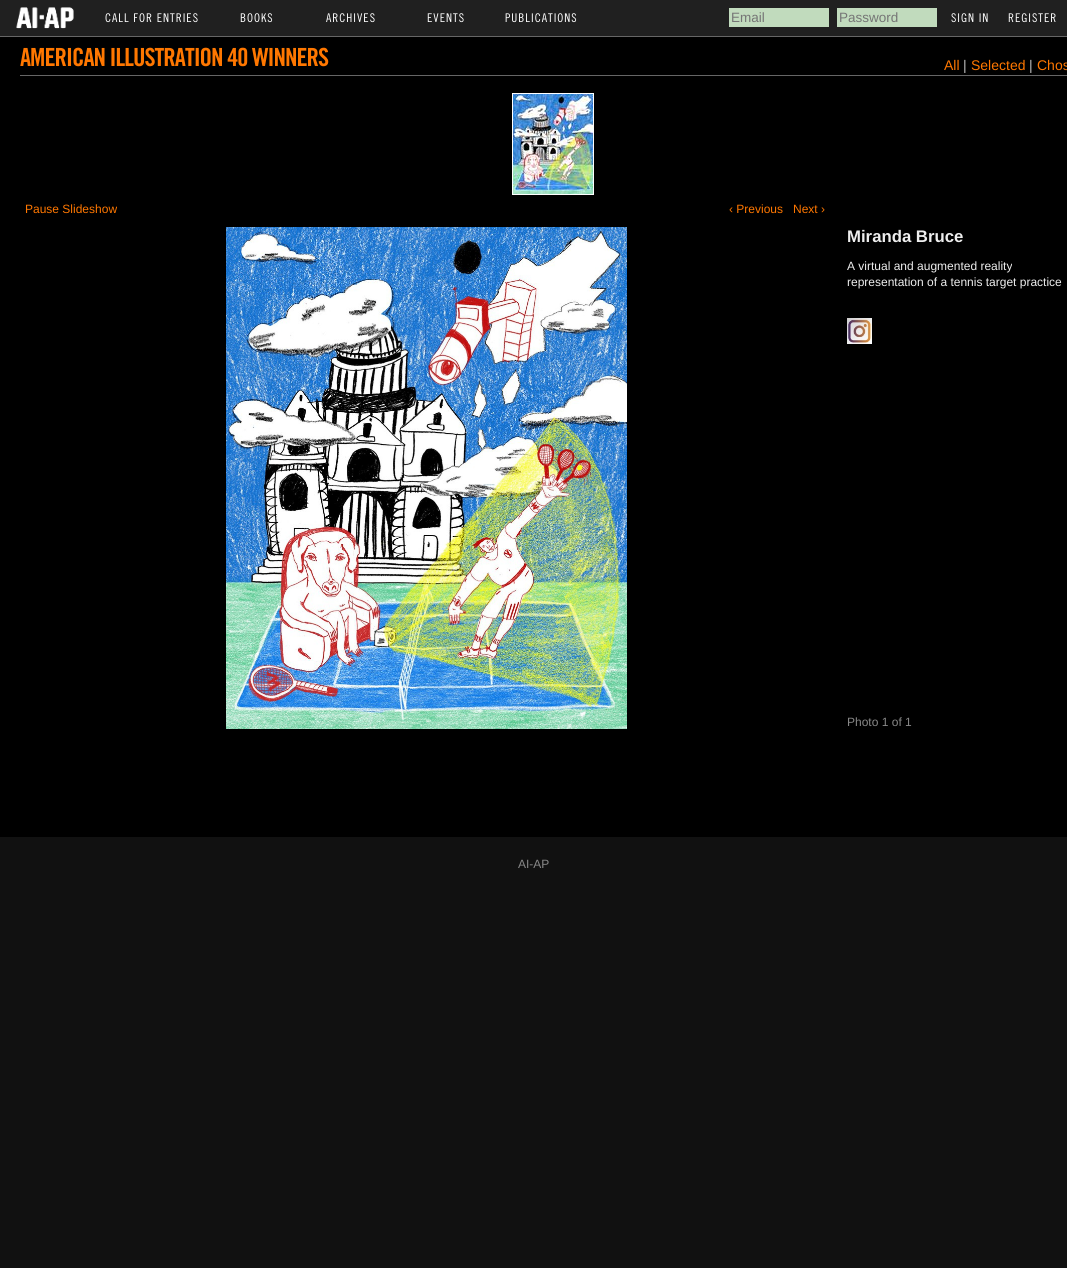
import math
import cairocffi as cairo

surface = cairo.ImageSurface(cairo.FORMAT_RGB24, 1067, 1268)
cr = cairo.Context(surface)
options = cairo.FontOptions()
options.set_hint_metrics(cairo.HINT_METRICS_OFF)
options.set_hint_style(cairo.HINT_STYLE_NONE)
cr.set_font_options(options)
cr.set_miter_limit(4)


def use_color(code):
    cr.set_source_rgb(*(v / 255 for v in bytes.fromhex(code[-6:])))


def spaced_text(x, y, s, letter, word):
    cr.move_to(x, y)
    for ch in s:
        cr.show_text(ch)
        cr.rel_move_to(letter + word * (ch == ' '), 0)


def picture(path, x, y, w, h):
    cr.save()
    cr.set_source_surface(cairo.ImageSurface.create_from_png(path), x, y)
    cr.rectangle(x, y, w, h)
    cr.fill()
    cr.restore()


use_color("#111111")
cr.paint()
use_color("#202020")
cr.rectangle(0, 0, 1067, 36)
cr.fill()
picture("img1.png", 16, 7, 58, 22)
cr.select_font_face("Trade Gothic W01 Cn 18")
cr.set_font_size(12)
use_color("#ffffff")
spaced_text(105, 22, "CALL FOR ENTRIES", 1, 0)
spaced_text(240, 22, "BOOKS", 1, 0)
spaced_text(326, 22, "ARCHIVES", 1, 0)
spaced_text(427, 22, "EVENTS", 1, 0)
spaced_text(505, 22, "PUBLICATIONS", 1, 0)
use_color("#c1dbbd")
cr.rectangle(729, 8, 100, 19)
cr.fill()
cr.select_font_face("Liberation Sans")
cr.set_font_size(13.5)
use_color("#757575")
cr.move_to(731, 22)
cr.show_text("Email")
use_color("#c1dbbd")
cr.rectangle(837, 8, 100, 19)
cr.fill()
use_color("#757575")
cr.move_to(839, 22)
cr.show_text("Password")
cr.select_font_face("Trade Gothic W01 Cn 18")
cr.set_font_size(12)
use_color("#ffffff")
spaced_text(951, 22, "SIGN IN", 1, 0)
spaced_text(1008, 22, "REGISTER", 1, 0)
use_color("#666666")
cr.rectangle(0, 36, 1067, 1)
cr.fill()
use_color("#000000")
cr.rectangle(0, 37, 1067, 800)
cr.fill()
use_color("#666666")
cr.rectangle(20, 75, 1047, 1)
cr.fill()
cr.select_font_face("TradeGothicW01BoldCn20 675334", cairo.FONT_SLANT_NORMAL, cairo.FONT_WEIGHT_BOLD)
cr.set_font_size(25)
use_color("#ff7700")
spaced_text(20, 66, "AMERICAN ILLUSTRATION 40 WINNERS", -1, 0)
cr.select_font_face("Liberation Sans")
cr.set_font_size(14)
cr.move_to(944, 70)
cr.show_text("All")
use_color("#bbbbbb")
cr.move_to(963, 70)
cr.show_text("|")
use_color("#ff7700")
cr.move_to(971, 70)
cr.show_text("Selected")
use_color("#bbbbbb")
cr.move_to(1029, 70)
cr.show_text("|")
use_color("#ff7700")
cr.move_to(1037, 70)
cr.show_text("Chos")
use_color("#ffffff")
cr.rectangle(512, 93, 82, 102)
cr.fill()
picture("img2.png", 513, 94, 80, 100)
cr.set_font_size(12)
use_color("#ff7700")
cr.move_to(25, 213)
cr.show_text("Pause Slideshow")
cr.move_to(729, 213)
cr.show_text("‹ Previous")
cr.move_to(793, 213)
cr.show_text("Next ›")
picture("img3.png", 226, 227, 401, 502)
cr.select_font_face("Liberation Sans", cairo.FONT_SLANT_NORMAL, cairo.FONT_WEIGHT_BOLD)
cr.set_font_size(16.75)
use_color("#eeeeee")
cr.move_to(847, 242)
cr.show_text("Miranda Bruce")
cr.select_font_face("Liberation Sans")
cr.set_font_size(12)
cr.move_to(847, 270)
cr.show_text("A virtual and augmented reality")
cr.move_to(847, 286)
cr.show_text("representation of a tennis target practice")
picture("img4.png", 847, 318, 25, 26)
use_color("#888888")
cr.move_to(847, 726)
cr.show_text("Photo 1 of 1")
cr.move_to(518, 868)
cr.show_text("AI-AP")
surface.write_to_png("result.png")
